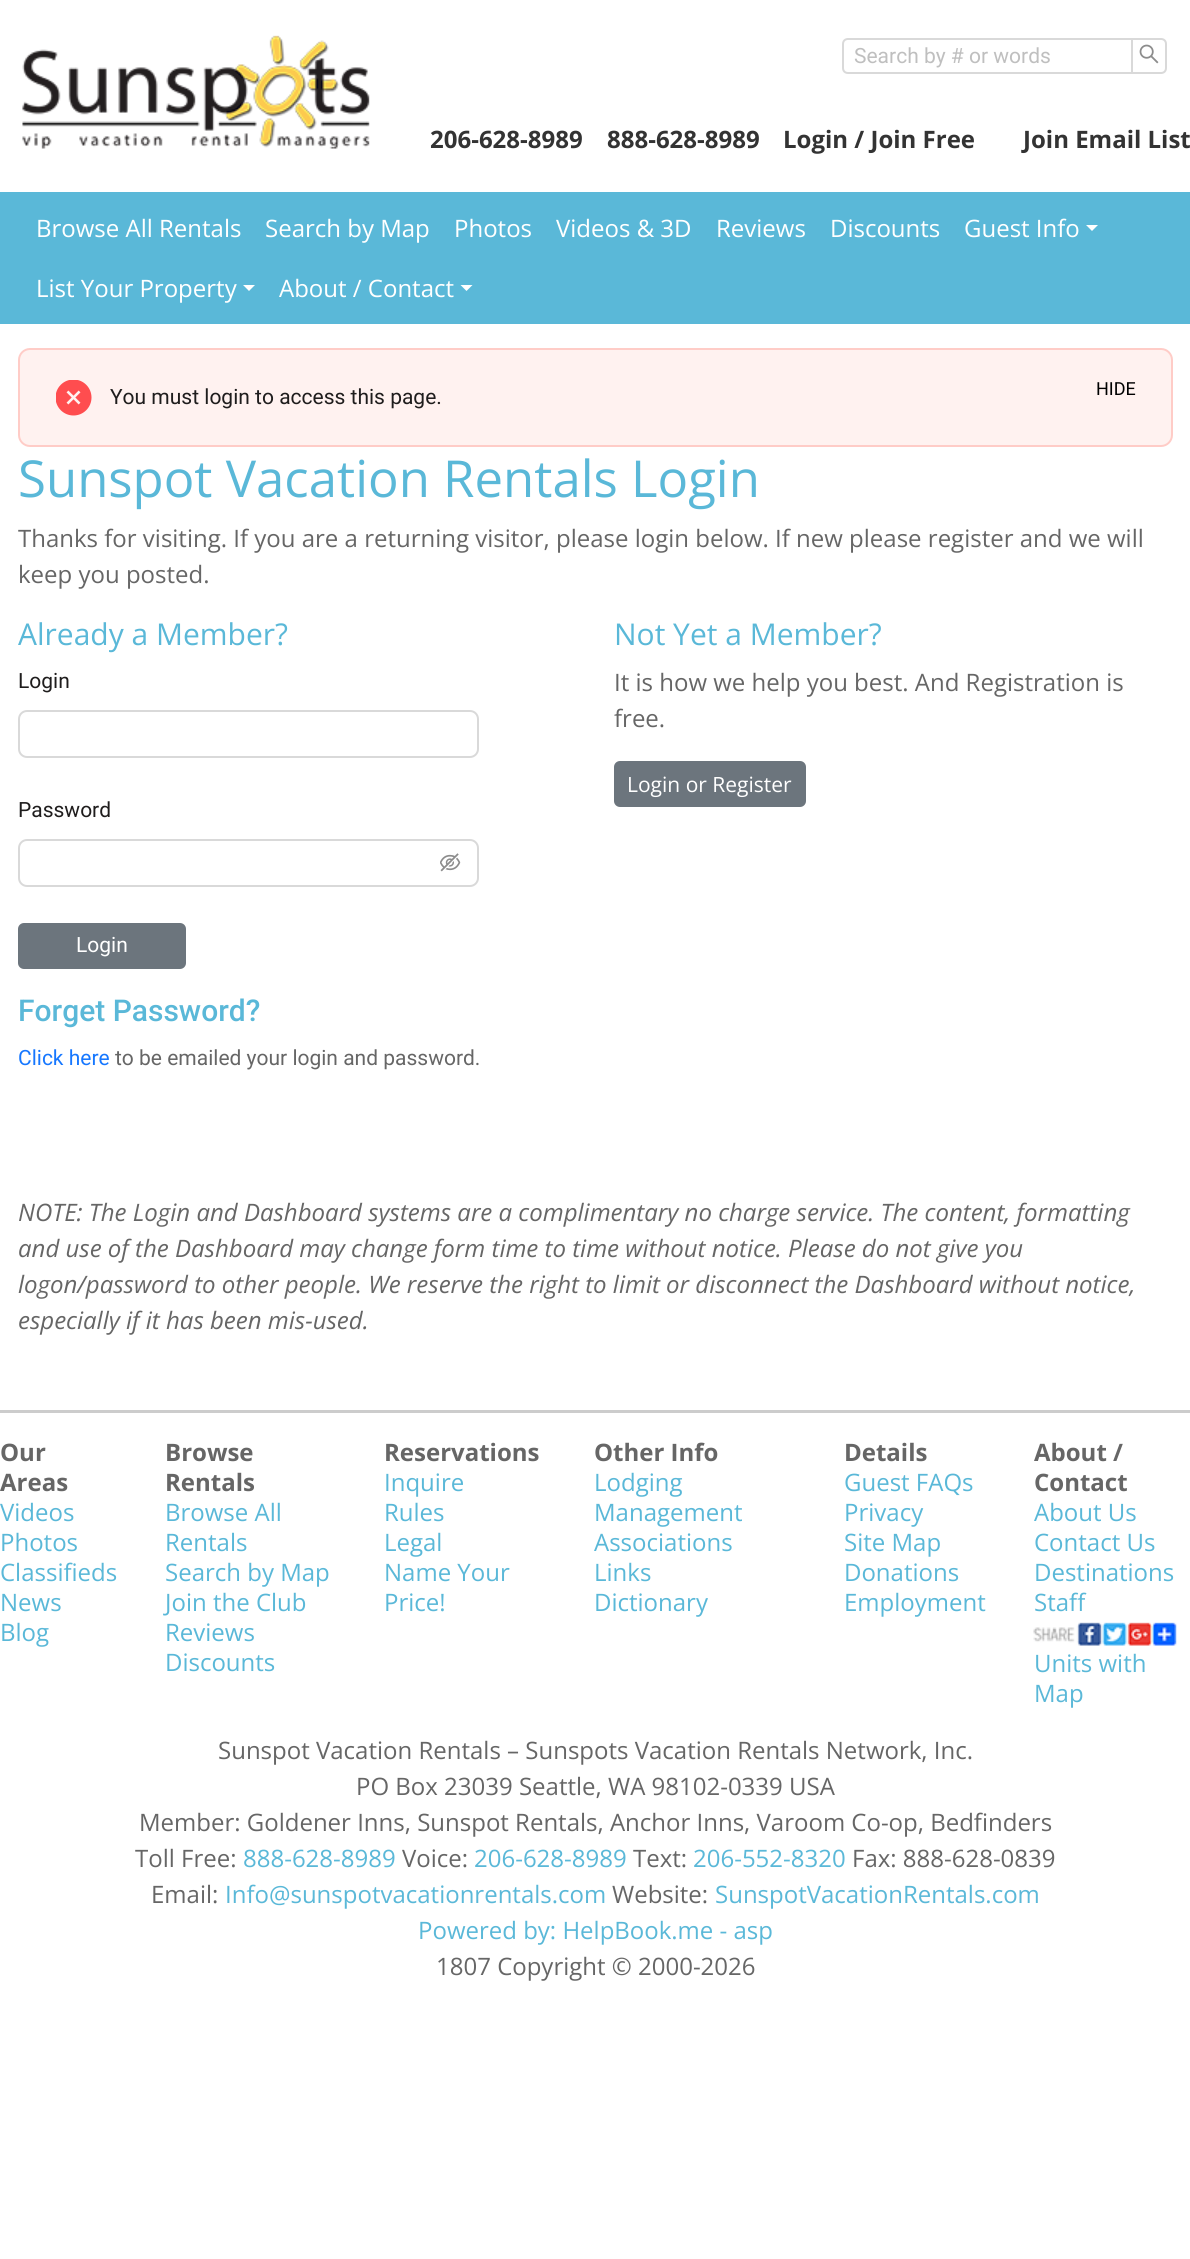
import math
import cairocffi as cairo

surface = cairo.ImageSurface(cairo.FORMAT_RGB24, 1190, 2259)
cr = cairo.Context(surface)
options = cairo.FontOptions()
options.set_hint_metrics(cairo.HINT_METRICS_OFF)
options.set_hint_style(cairo.HINT_STYLE_NONE)
cr.set_font_options(options)
cr.set_miter_limit(4)


def use_color(code):
    cr.set_source_rgb(*(v / 255 for v in bytes.fromhex(code[-6:])))


def round_rect(x, y, w, h, r):
    cr.new_sub_path()
    for i, (u, v) in enumerate([(x + w - r, y + h - r), (x + r, y + h - r), (x + r, y + r), (x + w - r, y + r)]):
        cr.arc(u, v, r, i * math.pi / 2, (i + 1) * math.pi / 2)
    cr.close_path()


def picture(path, x, y, w, h):
    cr.save()
    cr.set_source_surface(cairo.ImageSurface.create_from_png(path), x, y)
    cr.rectangle(x, y, w, h)
    cr.fill()
    cr.restore()


use_color("#ffffff")
cr.paint()
picture("img1.png", 22, 35, 348, 114)
cr.new_path()
cr.move_to(848, 39)
cr.line_to(1132, 39)
cr.line_to(1132, 73)
cr.line_to(848, 73)
cr.curve_to(845, 73, 843, 71, 843, 68)
cr.line_to(843, 44)
cr.curve_to(843, 41, 845, 39, 848, 39)
cr.close_path()
use_color("#d9d9d9")
cr.stroke()
cr.select_font_face("Roboto")
cr.set_font_size(21)
use_color("#bfbfbf")
cr.move_to(854, 63)
cr.show_text("Search by # or words")
use_color("#ffffff")
cr.new_path()
cr.move_to(1132, 39)
cr.line_to(1161, 39)
cr.curve_to(1164, 39, 1166, 41, 1166, 44)
cr.line_to(1166, 68)
cr.curve_to(1166, 71, 1164, 73, 1161, 73)
cr.line_to(1132, 73)
cr.close_path()
cr.fill_preserve()
use_color("#d9d9d9")
cr.stroke()
picture("img2.png", 1139, 44, 20, 20)
cr.select_font_face("Open Sans", cairo.FONT_SLANT_NORMAL, cairo.FONT_WEIGHT_BOLD)
cr.set_font_size(24)
use_color("#333333")
cr.move_to(430, 148)
cr.show_text("206-628-8989")
cr.move_to(607, 148)
cr.show_text("888-628-8989")
cr.move_to(783, 148)
cr.show_text("Login / Join Free")
cr.move_to(1023, 148)
cr.show_text("Join Email List")
use_color("#5ab8d8")
cr.rectangle(0, 192, 1190, 132)
cr.fill()
cr.select_font_face("Open Sans")
use_color("#ffffff")
cr.move_to(36, 237)
cr.show_text("Browse All Rentals")
cr.move_to(265, 237)
cr.show_text("Search by Map")
cr.move_to(454, 237)
cr.show_text("Photos")
cr.move_to(556, 237)
cr.show_text("Videos & 3D")
cr.move_to(716, 237)
cr.show_text("Reviews")
cr.move_to(830, 237)
cr.show_text("Discounts")
cr.move_to(964, 237)
cr.show_text("Guest Info")
cr.new_path()
cr.move_to(1086, 225)
cr.line_to(1098, 225)
cr.line_to(1092, 231)
cr.close_path()
cr.fill()
cr.move_to(36, 297)
cr.show_text("List Your Property")
cr.new_path()
cr.move_to(243, 285)
cr.line_to(255, 285)
cr.line_to(249, 291)
cr.close_path()
cr.fill()
cr.move_to(279, 297)
cr.show_text("About / Contact")
cr.new_path()
cr.move_to(460.5, 285)
cr.line_to(472.5, 285)
cr.line_to(466.5, 291)
cr.close_path()
cr.fill()
use_color("#fff2f0")
round_rect(19, 349, 1153, 97, 11)
cr.fill_preserve()
use_color("#ffccc7")
cr.stroke()
picture("img3.png", 56, 380, 36, 36)
cr.select_font_face("Roboto")
cr.set_font_size(21)
use_color("#1f1d1d")
cr.move_to(110, 404)
cr.show_text("You must login to access this page.")
cr.set_font_size(18)
use_color("#000000")
cr.move_to(1096, 395)
cr.show_text("HIDE")
cr.select_font_face("Open Sans")
cr.set_font_size(50.9)
use_color("#5ab8d8")
cr.move_to(18, 497)
cr.show_text("Sunspot Vacation Rentals Login")
cr.set_font_size(24)
use_color("#666666")
cr.move_to(18, 547)
cr.show_text("Thanks for visiting. If you are a returning visitor, please login below. If new please register and we will")
cr.move_to(18, 583)
cr.show_text("keep you posted.")
cr.set_font_size(30)
use_color("#5ab8d8")
cr.move_to(18, 645)
cr.show_text("Already a Member?")
cr.select_font_face("Roboto")
cr.set_font_size(21)
use_color("#1f1d1d")
cr.move_to(18, 688)
cr.show_text("Login")
round_rect(19, 711, 459, 46, 8)
use_color("#d9d9d9")
cr.stroke()
use_color("#1f1d1d")
cr.move_to(18, 817)
cr.show_text("Password")
round_rect(19, 840, 459, 46, 8)
use_color("#d9d9d9")
cr.stroke()
picture("img4.png", 440, 853, 21, 19)
use_color("#6c757d")
round_rect(19, 924, 166, 44, 5)
cr.fill_preserve()
cr.stroke()
use_color("#ffffff")
cr.move_to(76, 952)
cr.show_text("Login")
cr.select_font_face("Roboto Medium")
cr.set_font_size(30)
use_color("#5ab8d8")
cr.move_to(18, 1021)
cr.show_text("Forget Password?")
cr.select_font_face("Roboto")
cr.set_font_size(21)
use_color("#1677ff")
cr.move_to(18, 1065)
cr.show_text("Click here")
use_color("#666666")
cr.move_to(115, 1065)
cr.show_text("to be emailed your login and password.")
cr.select_font_face("Open Sans")
cr.set_font_size(30)
use_color("#5ab8d8")
cr.move_to(614, 645)
cr.show_text("Not Yet a Member?")
cr.set_font_size(24)
use_color("#666666")
cr.move_to(614, 691)
cr.show_text("It is how we help you best. And Registration is")
cr.move_to(614, 727)
cr.show_text("free.")
use_color("#6c757d")
round_rect(615, 762, 190, 44, 5)
cr.fill_preserve()
cr.stroke()
cr.set_font_size(21)
use_color("#ffffff")
cr.move_to(627, 792)
cr.show_text("Login or Register")
cr.select_font_face("Open Sans", cairo.FONT_SLANT_ITALIC)
cr.set_font_size(24)
use_color("#666666")
cr.move_to(18, 1221)
cr.show_text("NOTE: The Login and Dashboard systems are a complimentary no charge service. The content, formatting")
cr.move_to(18, 1257)
cr.show_text("and use of the Dashboard may change form time to time without notice. Please do not give you")
cr.move_to(18, 1293)
cr.show_text("logon/password to other people. We reserve the right to limit or disconnect the Dashboard without notice,")
cr.move_to(18, 1329)
cr.show_text("especially if it has been mis-used.")
use_color("#cccccc")
cr.rectangle(0, 1410, 1190, 3)
cr.fill()
cr.select_font_face("Open Sans", cairo.FONT_SLANT_NORMAL, cairo.FONT_WEIGHT_BOLD)
use_color("#666666")
cr.move_to(0, 1461)
cr.show_text("Our")
cr.move_to(0, 1491)
cr.show_text("Areas")
cr.select_font_face("Open Sans")
use_color("#5ab8d8")
cr.move_to(0, 1521)
cr.show_text("Videos")
cr.move_to(0, 1551)
cr.show_text("Photos")
cr.move_to(0, 1581)
cr.show_text("Classifieds")
cr.move_to(0, 1611)
cr.show_text("News")
cr.move_to(0, 1641)
cr.show_text("Blog")
cr.select_font_face("Open Sans", cairo.FONT_SLANT_NORMAL, cairo.FONT_WEIGHT_BOLD)
use_color("#666666")
cr.move_to(165, 1461)
cr.show_text("Browse")
cr.move_to(165, 1491)
cr.show_text("Rentals")
cr.select_font_face("Open Sans")
use_color("#5ab8d8")
cr.move_to(165, 1521)
cr.show_text("Browse All")
cr.move_to(165, 1551)
cr.show_text("Rentals")
cr.move_to(165, 1581)
cr.show_text("Search by Map")
cr.move_to(165, 1611)
cr.show_text("Join the Club")
cr.move_to(165, 1641)
cr.show_text("Reviews")
cr.move_to(165, 1671)
cr.show_text("Discounts")
cr.select_font_face("Open Sans", cairo.FONT_SLANT_NORMAL, cairo.FONT_WEIGHT_BOLD)
use_color("#666666")
cr.move_to(384, 1461)
cr.show_text("Reservations")
cr.select_font_face("Open Sans")
use_color("#5ab8d8")
cr.move_to(384, 1491)
cr.show_text("Inquire")
cr.move_to(384, 1521)
cr.show_text("Rules")
cr.move_to(384, 1551)
cr.show_text("Legal")
cr.move_to(384, 1581)
cr.show_text("Name Your")
cr.move_to(384, 1611)
cr.show_text("Price!")
cr.select_font_face("Open Sans", cairo.FONT_SLANT_NORMAL, cairo.FONT_WEIGHT_BOLD)
use_color("#666666")
cr.move_to(594, 1461)
cr.show_text("Other Info")
cr.select_font_face("Open Sans")
use_color("#5ab8d8")
cr.move_to(594, 1491)
cr.show_text("Lodging")
cr.move_to(594, 1521)
cr.show_text("Management")
cr.move_to(594, 1551)
cr.show_text("Associations")
cr.move_to(594, 1581)
cr.show_text("Links")
cr.move_to(594, 1611)
cr.show_text("Dictionary")
cr.select_font_face("Open Sans", cairo.FONT_SLANT_NORMAL, cairo.FONT_WEIGHT_BOLD)
use_color("#666666")
cr.move_to(844, 1461)
cr.show_text("Details")
cr.select_font_face("Open Sans")
use_color("#5ab8d8")
cr.move_to(844, 1491)
cr.show_text("Guest FAQs")
cr.move_to(844, 1521)
cr.show_text("Privacy")
cr.move_to(844, 1551)
cr.show_text("Site Map")
cr.move_to(844, 1581)
cr.show_text("Donations")
cr.move_to(844, 1611)
cr.show_text("Employment")
cr.select_font_face("Open Sans", cairo.FONT_SLANT_NORMAL, cairo.FONT_WEIGHT_BOLD)
use_color("#666666")
cr.move_to(1034, 1461)
cr.show_text("About /")
cr.move_to(1034, 1491)
cr.show_text("Contact")
cr.select_font_face("Open Sans")
use_color("#5ab8d8")
cr.move_to(1034, 1521)
cr.show_text("About Us")
cr.move_to(1034, 1551)
cr.show_text("Contact Us")
cr.move_to(1034, 1581)
cr.show_text("Destinations")
cr.move_to(1034, 1611)
cr.show_text("Staff")
picture("img5.png", 1033, 1622, 144, 24)
cr.move_to(1034, 1672)
cr.show_text("Units with")
cr.move_to(1034, 1702)
cr.show_text("Map")
use_color("#666666")
cr.move_to(218, 1759)
cr.show_text("Sunspot Vacation Rentals – Sunspots Vacation Rentals Network, Inc.")
cr.move_to(356, 1795)
cr.show_text("PO Box 23039 Seattle, WA 98102-0339 USA")
cr.move_to(139, 1831)
cr.show_text("Member: Goldener Inns, Sunspot Rentals, Anchor Inns, Varoom Co-op, Bedfinders")
cr.move_to(135, 1867)
cr.show_text("Toll Free:")
use_color("#5ab8d8")
cr.move_to(243, 1867)
cr.show_text("888-628-8989")
use_color("#666666")
cr.move_to(402, 1867)
cr.show_text("Voice:")
use_color("#5ab8d8")
cr.move_to(474, 1867)
cr.show_text("206-628-8989")
use_color("#666666")
cr.move_to(633, 1867)
cr.show_text("Text:")
use_color("#5ab8d8")
cr.move_to(693, 1867)
cr.show_text("206-552-8320")
use_color("#666666")
cr.move_to(852, 1867)
cr.show_text("Fax: 888-628-0839")
cr.move_to(151, 1903)
cr.show_text("Email:")
use_color("#5ab8d8")
cr.move_to(225, 1903)
cr.show_text("Info@sunspotvacationrentals.com")
use_color("#666666")
cr.move_to(612, 1903)
cr.show_text("Website:")
use_color("#5ab8d8")
cr.move_to(715, 1903)
cr.show_text("SunspotVacationRentals.com")
cr.move_to(418, 1939)
cr.show_text("Powered by: HelpBook.me - asp")
use_color("#666666")
cr.move_to(436, 1975)
cr.show_text("1807 Copyright © 2000-2026")
surface.write_to_png("result.png")
